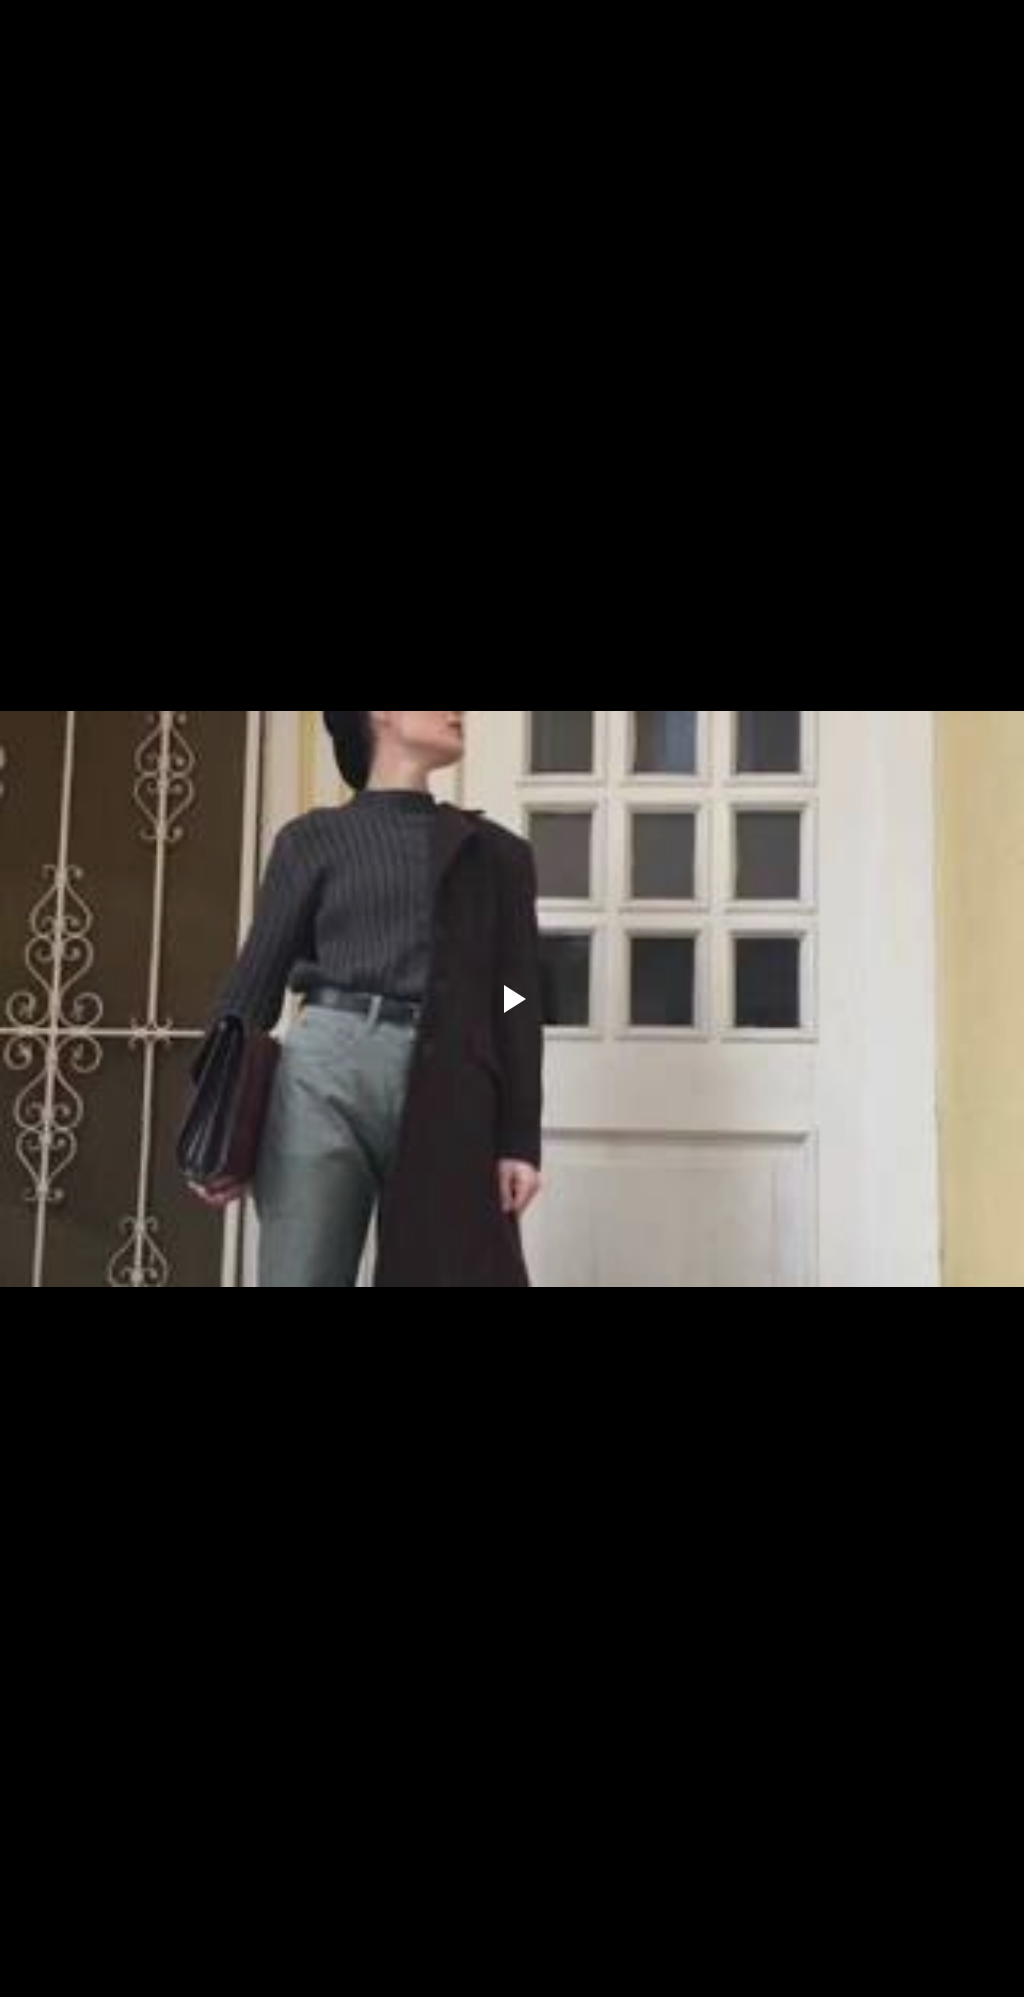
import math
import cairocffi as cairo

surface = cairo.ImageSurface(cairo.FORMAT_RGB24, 1024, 1997)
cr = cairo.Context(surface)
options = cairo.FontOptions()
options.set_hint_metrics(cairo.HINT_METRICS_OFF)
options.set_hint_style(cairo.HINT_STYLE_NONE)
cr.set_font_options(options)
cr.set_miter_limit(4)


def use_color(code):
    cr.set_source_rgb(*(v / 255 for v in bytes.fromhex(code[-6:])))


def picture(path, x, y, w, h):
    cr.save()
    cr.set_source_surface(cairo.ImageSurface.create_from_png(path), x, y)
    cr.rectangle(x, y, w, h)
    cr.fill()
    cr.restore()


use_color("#000000")
cr.paint()
picture("img1.png", 0, 711, 1024, 576)
picture("img2.png", 504, 985, 22, 28)
surface.write_to_png("result.png")
